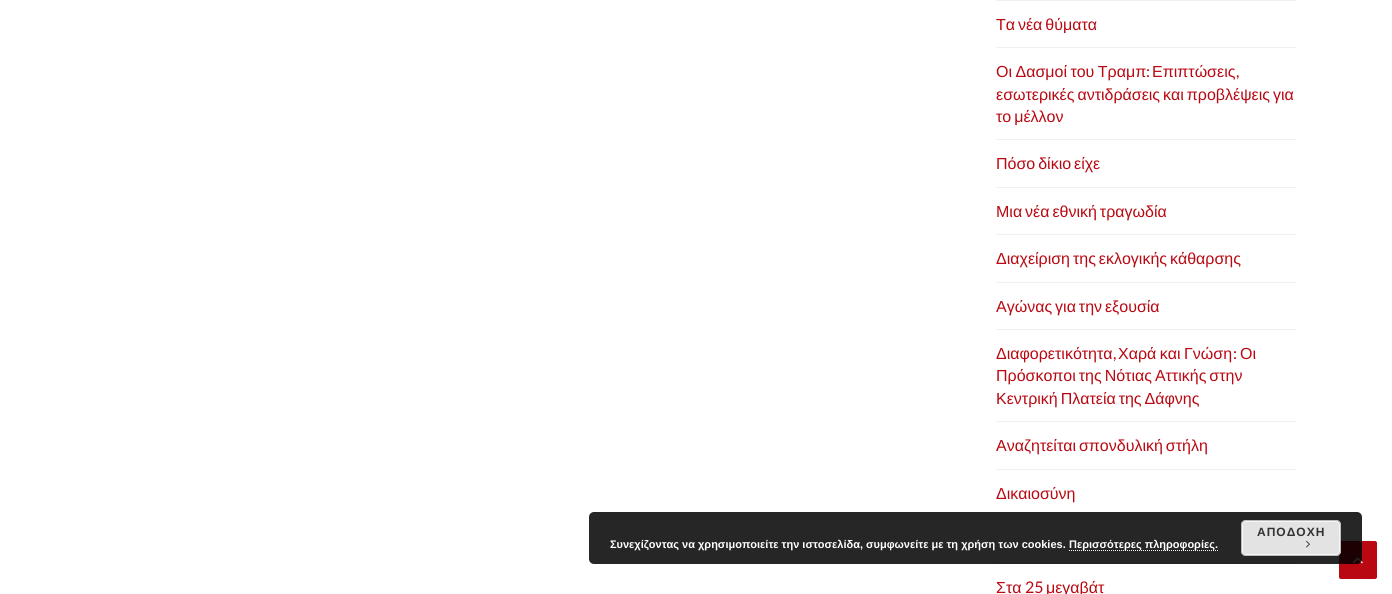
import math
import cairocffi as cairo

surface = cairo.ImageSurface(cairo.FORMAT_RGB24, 1392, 594)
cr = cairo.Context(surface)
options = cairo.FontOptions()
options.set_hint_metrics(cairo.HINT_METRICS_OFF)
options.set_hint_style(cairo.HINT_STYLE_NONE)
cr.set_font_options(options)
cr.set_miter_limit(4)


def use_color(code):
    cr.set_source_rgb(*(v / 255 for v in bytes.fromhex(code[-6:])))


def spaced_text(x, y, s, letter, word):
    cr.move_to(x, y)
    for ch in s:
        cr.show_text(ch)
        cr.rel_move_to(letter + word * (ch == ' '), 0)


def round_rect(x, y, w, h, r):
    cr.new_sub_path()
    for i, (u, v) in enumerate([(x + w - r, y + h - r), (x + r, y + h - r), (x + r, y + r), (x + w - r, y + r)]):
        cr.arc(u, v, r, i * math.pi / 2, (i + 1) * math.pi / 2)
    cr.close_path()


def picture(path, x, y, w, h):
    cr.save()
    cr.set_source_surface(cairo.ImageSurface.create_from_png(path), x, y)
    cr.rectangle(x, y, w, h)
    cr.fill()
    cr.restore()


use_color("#ffffff")
cr.paint()
use_color("#f0f0f0")
cr.rectangle(996, 0, 300, 1)
cr.fill()
cr.rectangle(996, 47, 300, 1)
cr.fill()
cr.select_font_face("Liberation Sans")
cr.set_font_size(16)
use_color("#b90811")
spaced_text(996, 30, "Τα νέα θύματα", 0, -1.5)
use_color("#f0f0f0")
cr.rectangle(996, 139, 300, 1)
cr.fill()
use_color("#b90811")
spaced_text(996, 77, "Οι Δασμοί του Τραμπ", 0, -1)
cr.select_font_face("Lato")
cr.move_to(1146, 77)
cr.show_text(":")
cr.select_font_face("Liberation Sans")
cr.move_to(1152, 77)
cr.show_text("Επιπτώσεις")
cr.select_font_face("Lato")
cr.move_to(1236, 77)
cr.show_text(",")
cr.select_font_face("Liberation Sans")
spaced_text(996, 100, "εσωτερικές αντιδράσεις και προβλέψεις για", 0, -1.5)
spaced_text(996, 122, "το μέλλον", 0, -1.5)
use_color("#f0f0f0")
cr.rectangle(996, 187, 300, 1)
cr.fill()
use_color("#b90811")
spaced_text(996, 169, "Πόσο δίκιο είχε", 0, -1.5)
use_color("#f0f0f0")
cr.rectangle(996, 234, 300, 1)
cr.fill()
use_color("#b90811")
spaced_text(996, 217, "Μια νέα εθνική τραγωδία", 0, -1.5)
use_color("#f0f0f0")
cr.rectangle(996, 282, 300, 1)
cr.fill()
use_color("#b90811")
spaced_text(996, 264, "Διαχείριση της εκλογικής κάθαρσης", 0, -1.5)
use_color("#f0f0f0")
cr.rectangle(996, 329, 300, 1)
cr.fill()
use_color("#b90811")
spaced_text(996, 312, "Αγώνας για την εξουσία", 0, -1.5)
use_color("#f0f0f0")
cr.rectangle(996, 421, 300, 1)
cr.fill()
use_color("#b90811")
cr.move_to(996, 359)
cr.show_text("Διαφορετικότητα")
cr.select_font_face("Lato")
cr.move_to(1113, 359)
cr.show_text(",")
cr.select_font_face("Liberation Sans")
spaced_text(1118, 359, "Χαρά και Γνώση", 0, -1)
cr.select_font_face("Lato")
cr.move_to(1233, 359)
cr.show_text(":")
cr.select_font_face("Liberation Sans")
cr.move_to(1240, 359)
cr.show_text("Οι")
spaced_text(996, 381, "Πρόσκοποι της Νότιας Αττικής στην", 0, -1.5)
spaced_text(996, 404, "Κεντρική Πλατεία της Δάφνης", 0, -1.5)
use_color("#f0f0f0")
cr.rectangle(996, 469, 300, 1)
cr.fill()
use_color("#b90811")
spaced_text(996, 451, "Αναζητείται σπονδυλική στήλη", 0, -1.5)
use_color("#f0f0f0")
cr.rectangle(996, 516, 300, 1)
cr.fill()
use_color("#b90811")
cr.move_to(996, 499)
cr.show_text("Δικαιοσύνη")
use_color("#f0f0f0")
cr.rectangle(996, 563, 300, 1)
cr.fill()
use_color("#b90811")
cr.move_to(996, 593)
cr.show_text("Στα")
cr.select_font_face("Lato")
cr.move_to(1025, 593)
cr.show_text("25")
cr.select_font_face("Liberation Sans")
cr.move_to(1046, 593)
cr.show_text("μεγαβάτ")
round_rect(1339, 541, 38, 38, 2)
cr.fill()
picture("img2.png", 1352, 557, 11, 7)
cr.set_source_rgba(0, 0, 0, 0.85)
round_rect(589, 512, 773, 52, 5)
cr.fill()
use_color("#e3e3e3")
round_rect(1241, 520, 100, 36, 5)
cr.fill()
round_rect(1242.5, 521.5, 97, 33, 3.5)
use_color("#f6f6f6")
cr.set_line_width(1)
cr.stroke()
round_rect(1241.5, 520.5, 99, 35, 4.5)
use_color("#bbbbbb")
cr.stroke()
cr.select_font_face("Liberation Sans", cairo.FONT_SLANT_NORMAL, cairo.FONT_WEIGHT_BOLD)
cr.set_font_size(12)
use_color("#333333")
spaced_text(1257, 536, "ΑΠΟΔΟΧΗ", 1, 0)
picture("img1.png", 1306, 540, 4, 8)
cr.set_font_size(11)
use_color("#ffffff")
cr.move_to(610, 548)
cr.show_text("Συνεχίζοντας να χρησιμοποιείτε την ιστοσελίδα, συμφωνείτε με τη χρήση των cookies.")
cr.new_path()
cr.move_to(1069, 550.5)
cr.line_to(1218, 550.5)
cr.set_dash([1, 1])
cr.stroke()
cr.move_to(1069, 548)
cr.show_text("Περισσότερες πληροφορίες.")
surface.write_to_png("result.png")
